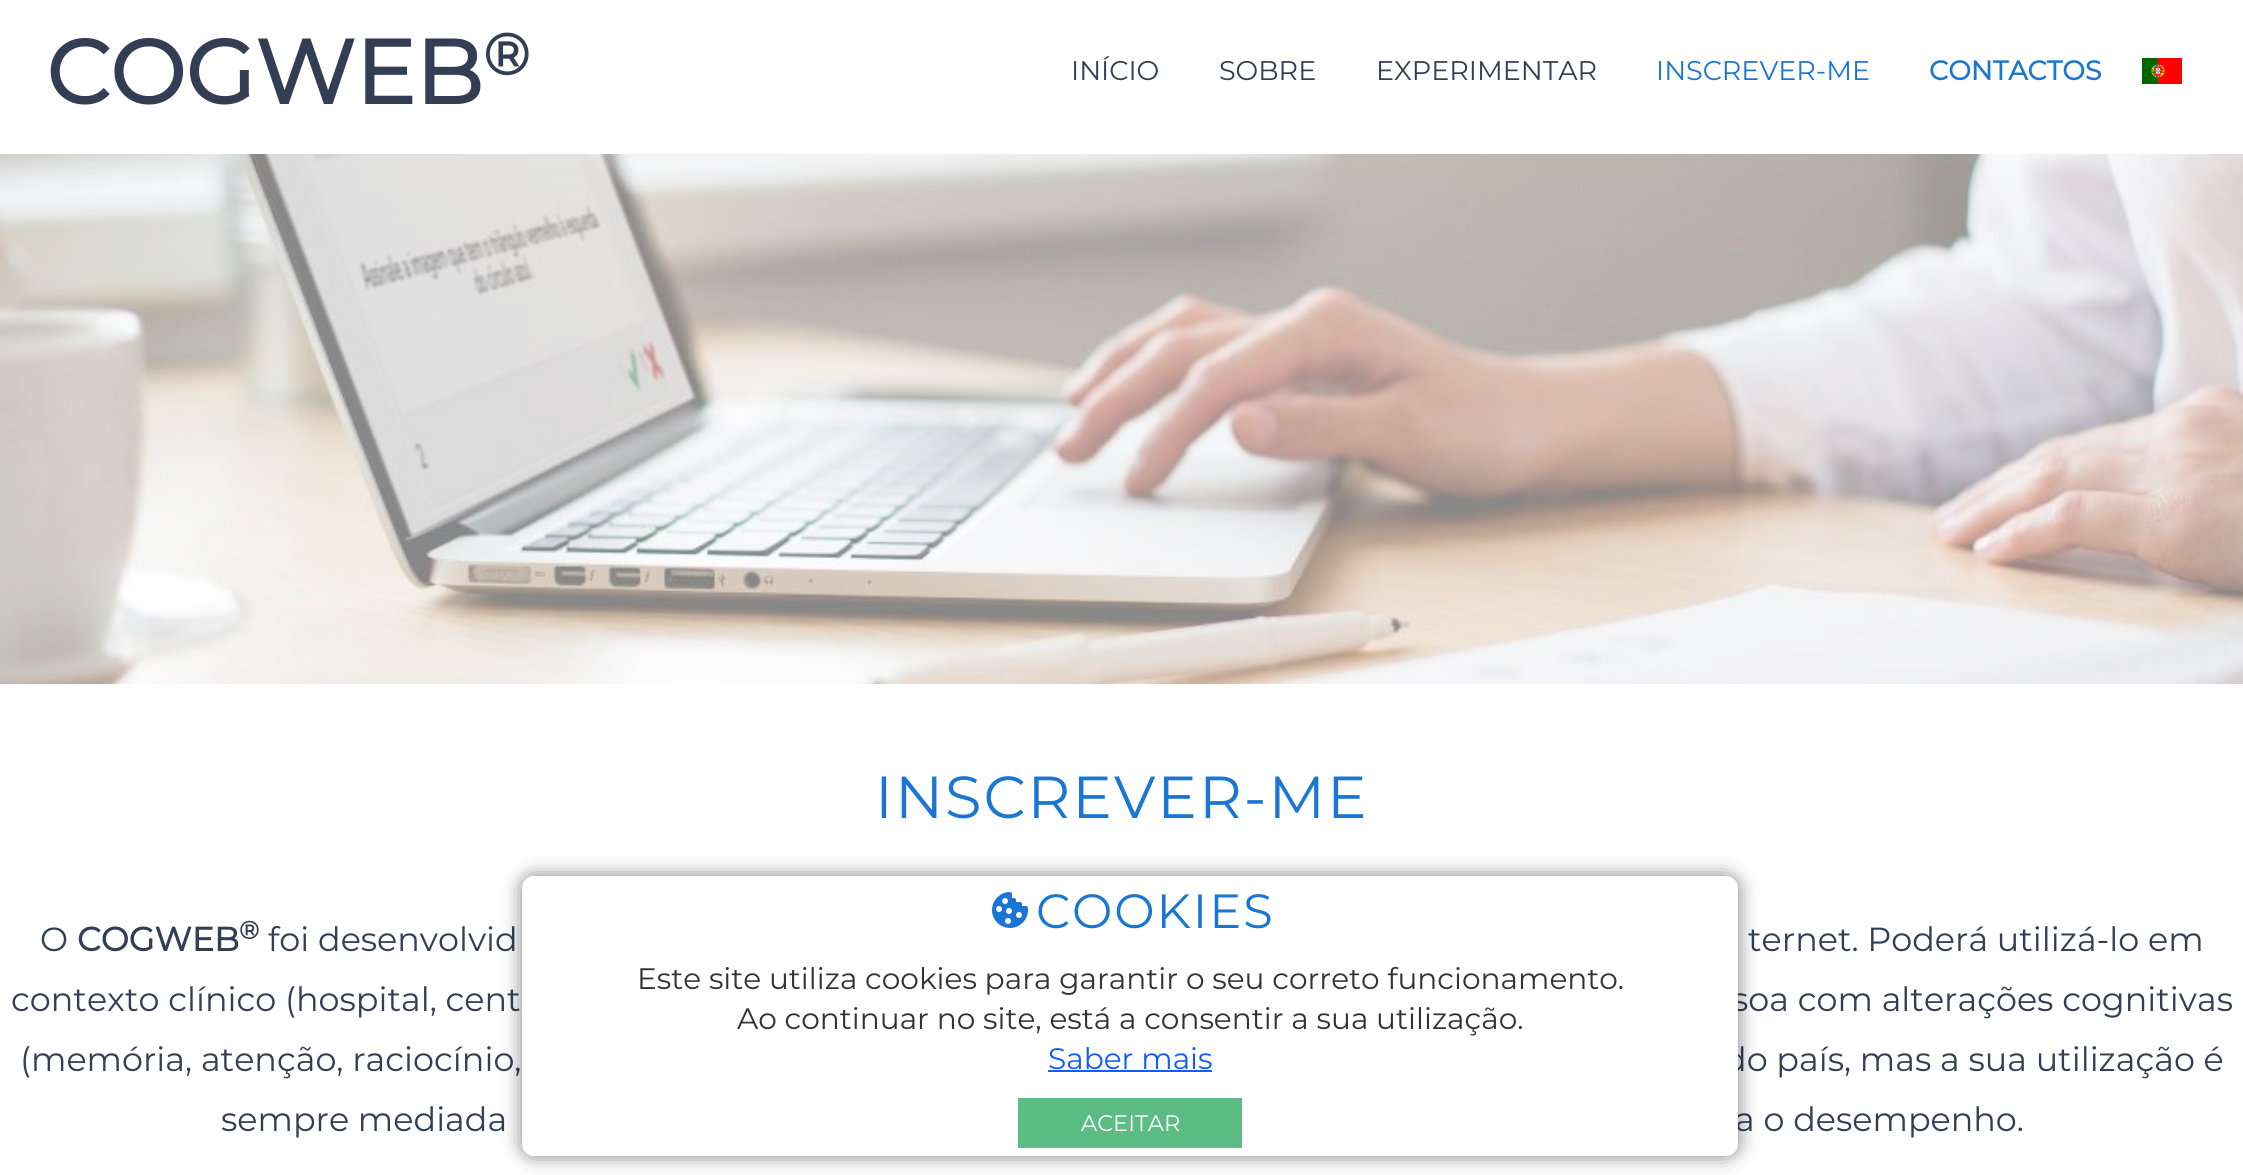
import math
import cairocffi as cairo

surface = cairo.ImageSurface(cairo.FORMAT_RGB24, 2243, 1175)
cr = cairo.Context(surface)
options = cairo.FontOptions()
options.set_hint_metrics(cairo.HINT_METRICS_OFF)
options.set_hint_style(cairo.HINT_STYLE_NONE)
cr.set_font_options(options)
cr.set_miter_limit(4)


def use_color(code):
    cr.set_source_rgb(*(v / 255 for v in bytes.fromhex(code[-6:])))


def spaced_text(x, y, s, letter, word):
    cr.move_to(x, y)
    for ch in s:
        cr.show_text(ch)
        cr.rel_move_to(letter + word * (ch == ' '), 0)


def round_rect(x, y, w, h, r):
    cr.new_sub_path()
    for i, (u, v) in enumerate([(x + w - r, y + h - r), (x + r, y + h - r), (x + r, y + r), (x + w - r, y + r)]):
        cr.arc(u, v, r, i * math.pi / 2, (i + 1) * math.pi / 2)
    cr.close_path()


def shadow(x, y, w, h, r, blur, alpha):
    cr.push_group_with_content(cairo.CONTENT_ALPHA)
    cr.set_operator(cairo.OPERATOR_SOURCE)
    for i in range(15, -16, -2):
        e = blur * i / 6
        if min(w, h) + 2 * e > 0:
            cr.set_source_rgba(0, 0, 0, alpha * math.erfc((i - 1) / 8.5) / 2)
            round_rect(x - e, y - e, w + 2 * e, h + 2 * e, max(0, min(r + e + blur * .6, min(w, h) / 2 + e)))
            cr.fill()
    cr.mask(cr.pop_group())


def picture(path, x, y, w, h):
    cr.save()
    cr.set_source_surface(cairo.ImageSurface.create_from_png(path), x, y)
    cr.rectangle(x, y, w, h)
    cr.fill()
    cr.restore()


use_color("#ffffff")
cr.paint()
cr.select_font_face("Montserrat", cairo.FONT_SLANT_NORMAL, cairo.FONT_WEIGHT_BOLD)
cr.set_font_size(90)
use_color("#333e55")
cr.move_to(46, 104)
cr.show_text("COGWEB")
cr.set_font_size(58)
cr.move_to(483, 75)
cr.show_text("®")
cr.select_font_face("Montserrat Thin")
cr.set_font_size(27)
cr.move_to(1071, 80)
cr.show_text("INÍCIO")
cr.move_to(1219, 80)
cr.show_text("SOBRE")
cr.move_to(1376, 80)
cr.show_text("EXPERIMENTAR")
use_color("#1976d2")
cr.move_to(1656, 80)
cr.show_text("INSCREVER-ME")
cr.select_font_face("Montserrat", cairo.FONT_SLANT_NORMAL, cairo.FONT_WEIGHT_BOLD)
cr.move_to(1929, 80)
cr.show_text("CONTACTOS")
picture("img1.png", 2142, 58, 40, 26)
picture("img2.png", 0, 154, 2243, 530)
cr.select_font_face("Montserrat Thin")
cr.set_font_size(59.25)
spaced_text(875, 818, "INSCREVER-ME", 2, 0)
cr.set_font_size(33.4)
use_color("#333e55")
cr.move_to(40, 951)
cr.show_text("O")
cr.select_font_face("Montserrat", cairo.FONT_SLANT_NORMAL, cairo.FONT_WEIGHT_BOLD)
cr.move_to(77, 951)
cr.show_text("COGWEB")
cr.set_font_size(25)
cr.move_to(239, 939)
cr.show_text("®")
cr.select_font_face("Montserrat Thin")
cr.set_font_size(33.4)
cr.move_to(268, 951)
cr.show_text("foi desenvolvid")
cr.move_to(1748, 951)
cr.show_text("ternet. Poderá utilizá-lo em")
cr.move_to(11, 1011)
cr.show_text("contexto clínico (hospital, cent")
cr.move_to(1732, 1011)
cr.show_text("soa com alterações cognitivas")
cr.move_to(20, 1071)
cr.show_text("(memória, atenção, raciocínio,")
cr.move_to(1724, 1071)
cr.show_text("do país, mas a sua utilização é")
cr.move_to(221, 1131)
cr.show_text("sempre mediada")
cr.move_to(1735, 1131)
cr.show_text("a o desempenho.")
use_color("#000000")
shadow(522, 876, 1216, 280, 12, 10, 0.5)
use_color("#ffffff")
round_rect(522, 876, 1216, 280, 12)
cr.fill()
picture("img3.png", 992, 892, 36, 36)
cr.set_font_size(48)
use_color("#1976d2")
spaced_text(1036, 928, "COOKIES", 2, 0)
cr.set_font_size(29.6)
use_color("#333333")
cr.move_to(637, 989)
cr.show_text("Este site utiliza cookies para garantir o seu correto funcionamento.")
cr.move_to(737, 1029)
cr.show_text("Ao continuar no site, está a consentir a sua utilização.")
use_color("#115cfa")
cr.move_to(1048, 1069)
cr.show_text("Saber mais")
cr.rectangle(1048, 1070, 164, 2)
cr.fill()
use_color("#5bbd84")
cr.rectangle(1020, 1100, 220, 46)
cr.fill()
cr.rectangle(1018, 1098, 224, 2)
cr.fill()
cr.rectangle(1240, 1098, 2, 50)
cr.fill()
cr.rectangle(1018, 1146, 224, 2)
cr.fill()
cr.rectangle(1018, 1098, 2, 50)
cr.fill()
cr.set_font_size(22.5)
use_color("#ffffff")
cr.move_to(1081, 1131)
cr.show_text("ACEITAR")
surface.write_to_png("result.png")
